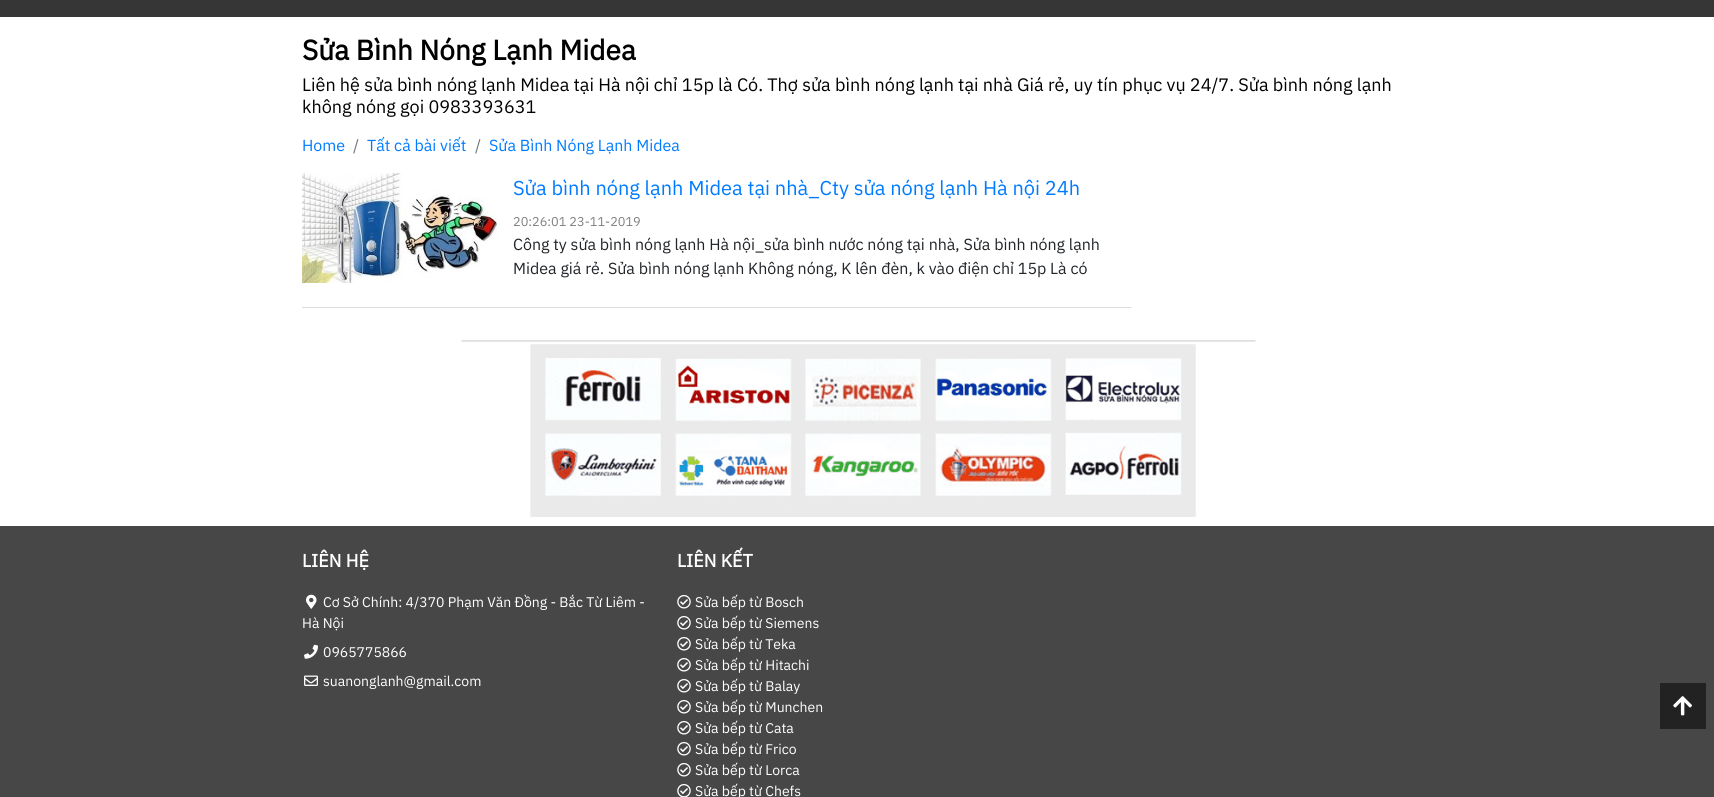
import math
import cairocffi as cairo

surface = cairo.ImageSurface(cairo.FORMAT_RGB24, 1714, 797)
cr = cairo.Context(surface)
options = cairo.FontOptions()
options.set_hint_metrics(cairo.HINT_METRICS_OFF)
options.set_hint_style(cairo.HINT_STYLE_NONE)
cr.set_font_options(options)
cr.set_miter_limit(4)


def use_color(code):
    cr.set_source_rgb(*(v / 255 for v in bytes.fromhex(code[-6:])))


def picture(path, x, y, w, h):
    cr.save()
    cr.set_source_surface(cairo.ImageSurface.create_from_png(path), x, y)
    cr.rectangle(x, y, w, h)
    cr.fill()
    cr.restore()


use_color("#ffffff")
cr.paint()
use_color("#363636")
cr.rectangle(0, 0, 1714, 17)
cr.fill()
cr.select_font_face("IBM Plex Sans", cairo.FONT_SLANT_NORMAL, cairo.FONT_WEIGHT_BOLD)
cr.set_font_size(28)
use_color("#000000")
cr.move_to(302, 60)
cr.show_text("Sửa Bình Nóng Lạnh Midea")
cr.select_font_face("IBM Plex Sans")
cr.set_font_size(18)
cr.move_to(302, 91)
cr.show_text("Liên hệ sửa bình nóng lạnh Midea tại Hà nội chỉ 15p là Có. Thợ sửa bình nóng lạnh tại nhà Giá rẻ, uy tín phục vụ 24/7. Sửa bình nóng lạnh")
cr.move_to(302, 113)
cr.show_text("không nóng gọi 0983393631")
cr.set_font_size(16)
use_color("#007bff")
cr.move_to(302, 151)
cr.show_text("Home")
use_color("#6c757d")
cr.move_to(353, 151)
cr.show_text("/")
use_color("#007bff")
cr.move_to(367, 151)
cr.show_text("Tất cả bài viết")
use_color("#6c757d")
cr.move_to(475, 151)
cr.show_text("/")
use_color("#007bff")
cr.move_to(489, 151)
cr.show_text("Sửa Bình Nóng Lạnh Midea")
use_color("#dddddd")
cr.rectangle(302, 307, 829, 1)
cr.fill()
picture("img1.png", 302, 173, 195, 110)
cr.set_font_size(20)
use_color("#007bff")
cr.move_to(513, 195)
cr.show_text("Sửa bình nóng lạnh Midea tại nhà_Cty sửa nóng lạnh Hà nội 24h")
cr.set_font_size(12.75)
use_color("#808080")
cr.move_to(513, 226)
cr.show_text("20:26:01 23-11-2019")
cr.set_font_size(16)
use_color("#212529")
cr.move_to(513, 250)
cr.show_text("Công ty sửa bình nóng lạnh Hà nội_sửa bình nước nóng tại nhà, Sửa bình nóng lạnh")
cr.move_to(513, 274)
cr.show_text("Midea giá rẻ. Sửa bình nóng lạnh Không nóng, K lên đèn, k vào điện chỉ 15p Là có")
picture("img2.png", 461, 340, 795, 177)
use_color("#474747")
cr.rectangle(0, 526, 1714, 271)
cr.fill()
cr.select_font_face("IBM Plex Sans", cairo.FONT_SLANT_NORMAL, cairo.FONT_WEIGHT_BOLD)
cr.set_font_size(18)
use_color("#ffffff")
cr.move_to(302, 567)
cr.show_text("LIÊN HỆ")
picture("img3.png", 306, 594, 11, 15)
cr.select_font_face("IBM Plex Sans")
cr.set_font_size(14)
cr.move_to(323, 607)
cr.show_text("Cơ Sở Chính: 4/370 Phạm Văn Đồng - Bắc Từ Liêm -")
cr.move_to(302, 628)
cr.show_text("Hà Nội")
picture("img4.png", 304, 644, 14, 15)
cr.move_to(323, 657)
cr.show_text("0965775866")
picture("img5.png", 304, 675, 14, 11)
cr.move_to(323, 686)
cr.show_text("suanonglanh@gmail.com")
cr.select_font_face("IBM Plex Sans", cairo.FONT_SLANT_NORMAL, cairo.FONT_WEIGHT_BOLD)
cr.set_font_size(18)
cr.move_to(677, 567)
cr.show_text("LIÊN KẾT")
picture("img6.png", 677, 595, 14, 14)
cr.select_font_face("IBM Plex Sans")
cr.set_font_size(14)
cr.move_to(695, 607)
cr.show_text("Sửa bếp từ Bosch")
picture("img6.png", 677, 616, 14, 14)
cr.move_to(695, 628)
cr.show_text("Sửa bếp từ Siemens")
picture("img6.png", 677, 637, 14, 14)
cr.move_to(695, 649)
cr.show_text("Sửa bếp từ Teka")
picture("img6.png", 677, 658, 14, 14)
cr.move_to(695, 670)
cr.show_text("Sửa bếp từ Hitachi")
picture("img6.png", 677, 679, 14, 14)
cr.move_to(695, 691)
cr.show_text("Sửa bếp từ Balay")
picture("img6.png", 677, 700, 14, 14)
cr.move_to(695, 712)
cr.show_text("Sửa bếp từ Munchen")
picture("img6.png", 677, 721, 14, 14)
cr.move_to(695, 733)
cr.show_text("Sửa bếp từ Cata")
picture("img6.png", 677, 742, 14, 14)
cr.move_to(695, 754)
cr.show_text("Sửa bếp từ Frico")
picture("img6.png", 677, 763, 14, 14)
cr.move_to(695, 775)
cr.show_text("Sửa bếp từ Lorca")
picture("img7.png", 677, 784, 14, 13)
cr.move_to(695, 796)
cr.show_text("Sửa bếp từ Chefs")
use_color("#222222")
cr.rectangle(1660, 683, 46, 46)
cr.fill()
picture("img8.png", 1673, 696, 19, 20)
surface.write_to_png("result.png")
